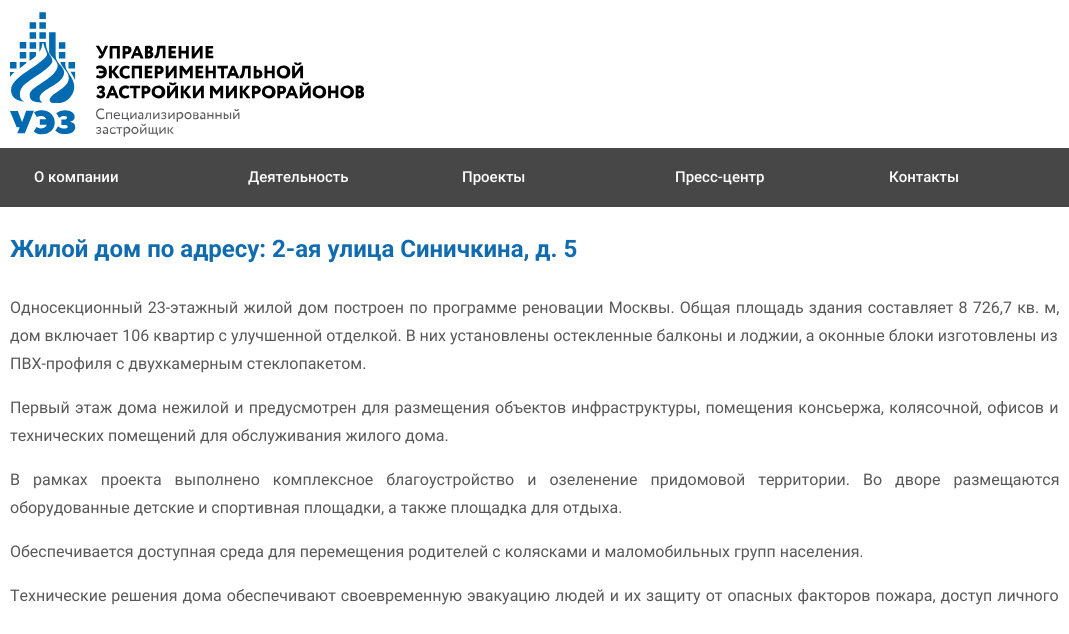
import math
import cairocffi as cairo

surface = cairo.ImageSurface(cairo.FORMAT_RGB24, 1069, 634)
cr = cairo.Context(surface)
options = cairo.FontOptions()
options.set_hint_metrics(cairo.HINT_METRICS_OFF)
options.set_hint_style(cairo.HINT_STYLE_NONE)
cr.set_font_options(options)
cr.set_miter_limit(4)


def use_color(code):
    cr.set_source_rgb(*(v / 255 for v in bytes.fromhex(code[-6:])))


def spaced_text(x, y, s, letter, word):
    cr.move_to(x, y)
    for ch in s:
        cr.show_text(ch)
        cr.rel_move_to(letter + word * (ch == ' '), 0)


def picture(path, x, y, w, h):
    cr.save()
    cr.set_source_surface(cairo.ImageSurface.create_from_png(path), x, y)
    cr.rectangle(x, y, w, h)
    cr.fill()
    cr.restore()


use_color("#ffffff")
cr.paint()
picture("img1.png", 10, 12, 354, 125)
use_color("#474747")
cr.rectangle(0, 148, 1069, 59)
cr.fill()
cr.select_font_face("Roboto Medium")
cr.set_font_size(15)
use_color("#ffffff")
cr.move_to(34, 182)
cr.show_text("О компании")
cr.move_to(248, 182)
cr.show_text("Деятельность")
cr.move_to(462, 182)
cr.show_text("Проекты")
cr.move_to(675, 182)
cr.show_text("Пресс-центр")
cr.move_to(889, 182)
cr.show_text("Контакты")
cr.select_font_face("Roboto", cairo.FONT_SLANT_NORMAL, cairo.FONT_WEIGHT_BOLD)
cr.set_font_size(24)
use_color("#0f6cb1")
cr.move_to(10, 257)
cr.show_text("Жилой дом по адресу: 2-ая улица Синичкина, д. 5")
cr.select_font_face("Roboto")
cr.set_font_size(16)
use_color("#585858")
spaced_text(10, 313, "Односекционный 23-этажный жилой дом построен по программе реновации Москвы. Общая площадь здания составляет 8 726,7 кв. м,", 0, 1.25)
cr.move_to(10, 341)
cr.show_text("дом включает 106 квартир с улучшенной отделкой. В них установлены остекленные балконы и лоджии, а оконные блоки изготовлены из")
cr.move_to(10, 369)
cr.show_text("ПВХ-профиля с двухкамерным стеклопакетом.")
spaced_text(10, 413, "Первый этаж дома нежилой и предусмотрен для размещения объектов инфраструктуры, помещения консьержа, колясочной, офисов и", 0, 1.3)
cr.move_to(10, 441)
cr.show_text("технических помещений для обслуживания жилого дома.")
spaced_text(10, 485, "В рамках проекта выполнено комплексное благоустройство и озеленение придомовой территории. Во дворе размещаются", 0, 9)
cr.move_to(10, 513)
cr.show_text("оборудованные детские и спортивная площадки, а также площадка для отдыха.")
cr.move_to(10, 557)
cr.show_text("Обеспечивается доступная среда для перемещения родителей с колясками и маломобильных групп населения.")
spaced_text(10, 601, "Технические решения дома обеспечивают своевременную эвакуацию людей и их защиту от опасных факторов пожара, доступ личного", 0, 1)
surface.write_to_png("result.png")
